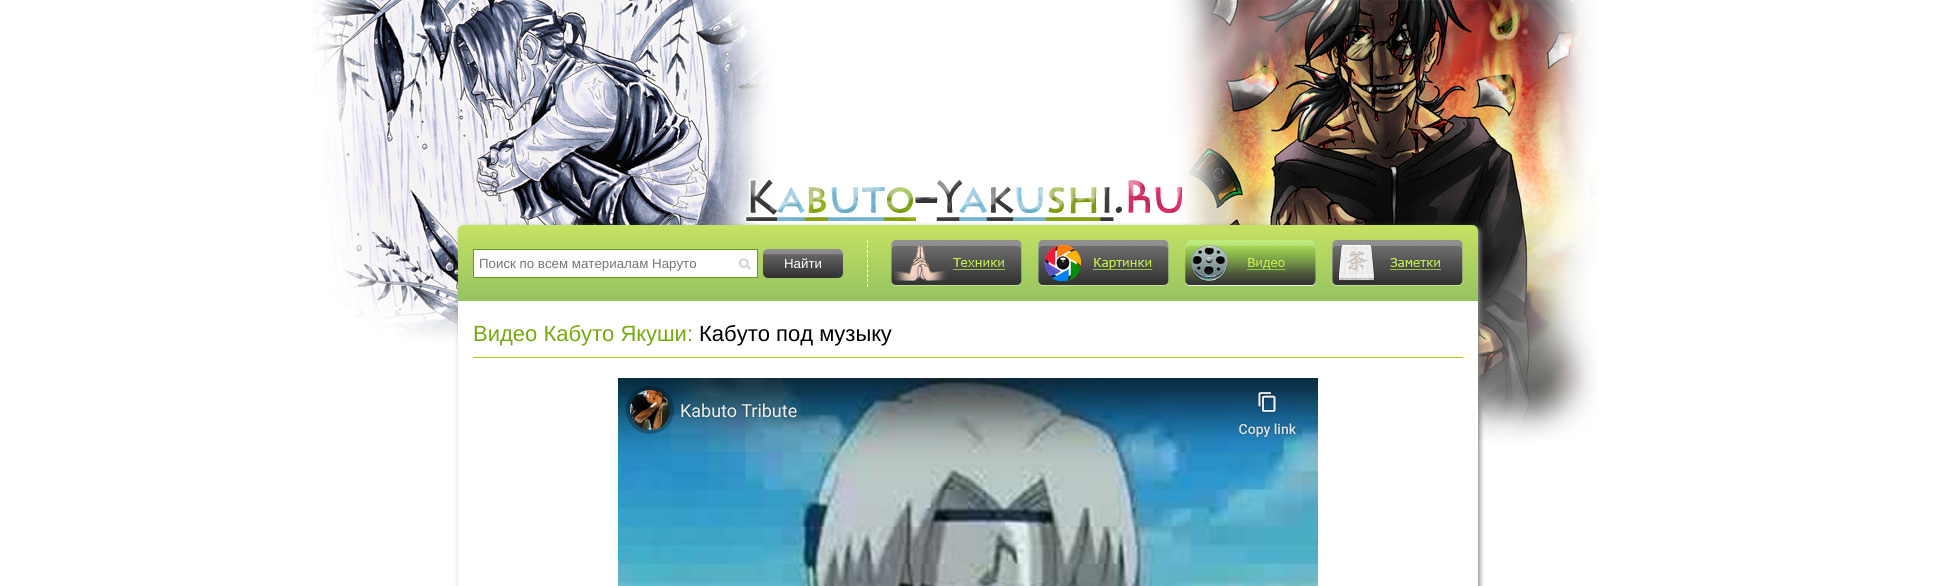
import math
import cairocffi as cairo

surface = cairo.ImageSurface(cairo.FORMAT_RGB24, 1936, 586)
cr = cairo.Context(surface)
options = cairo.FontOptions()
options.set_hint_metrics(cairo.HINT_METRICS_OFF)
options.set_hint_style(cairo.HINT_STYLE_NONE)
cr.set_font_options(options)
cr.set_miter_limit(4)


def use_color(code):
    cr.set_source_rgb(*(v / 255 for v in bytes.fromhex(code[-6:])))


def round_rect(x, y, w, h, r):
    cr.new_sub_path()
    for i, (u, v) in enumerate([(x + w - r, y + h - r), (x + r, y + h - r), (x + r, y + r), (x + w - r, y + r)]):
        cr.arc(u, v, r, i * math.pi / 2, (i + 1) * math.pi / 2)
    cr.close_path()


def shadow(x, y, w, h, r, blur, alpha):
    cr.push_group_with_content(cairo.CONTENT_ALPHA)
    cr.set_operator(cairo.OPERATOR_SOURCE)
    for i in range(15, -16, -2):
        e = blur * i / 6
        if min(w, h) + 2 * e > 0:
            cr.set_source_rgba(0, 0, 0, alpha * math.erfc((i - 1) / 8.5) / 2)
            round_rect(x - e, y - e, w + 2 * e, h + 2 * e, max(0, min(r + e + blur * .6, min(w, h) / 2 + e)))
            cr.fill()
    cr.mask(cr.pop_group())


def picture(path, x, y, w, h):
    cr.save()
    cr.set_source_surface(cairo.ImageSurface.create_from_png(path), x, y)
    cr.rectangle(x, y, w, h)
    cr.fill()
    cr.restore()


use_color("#ffffff")
cr.paint()
picture("img1.png", 311, 0, 1286, 442)
use_color("#898989")
shadow(460, 227, 1020, 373, 6, 2.5, 1)
picture("img2.png", 744, 178, 440, 45)
gradient = cairo.LinearGradient(968, 225, 968, 301)
gradient.add_color_stop_rgba(0, 0.776, 0.886, 0.384, 1)
gradient.add_color_stop_rgba(1, 0.584, 0.765, 0.38, 1)
cr.set_source(gradient)
cr.new_path()
cr.move_to(464, 225)
cr.line_to(1472, 225)
cr.curve_to(1475.5, 225, 1478, 227.5, 1478, 231)
cr.line_to(1478, 301)
cr.line_to(458, 301)
cr.line_to(458, 231)
cr.curve_to(458, 227.5, 460.5, 225, 464, 225)
cr.close_path()
cr.fill()
use_color("#ffffff")
cr.rectangle(474, 250, 283, 27)
cr.fill()
picture("img3.png", 739, 258, 12, 12)
cr.rectangle(473.5, 249.5, 284, 28)
use_color("#639c1f")
cr.set_line_width(1)
cr.stroke()
cr.select_font_face("Liberation Sans")
cr.set_font_size(13.3)
use_color("#757575")
cr.move_to(479, 268)
cr.show_text("Поиск по всем материалам Наруто")
gradient = cairo.LinearGradient(803, 249, 803, 278)
gradient.add_color_stop_rgba(0, 0.561, 0.561, 0.561, 1)
gradient.add_color_stop_rgba(0.17, 0.529, 0.529, 0.529, 1)
gradient.add_color_stop_rgba(0.2, 0.392, 0.392, 0.392, 1)
gradient.add_color_stop_rgba(1, 0.188, 0.188, 0.188, 1)
cr.set_source(gradient)
round_rect(763, 249, 80, 29, 5)
cr.fill()
use_color("#ffffff")
cr.move_to(784, 268)
cr.show_text("Найти")
cr.new_path()
cr.move_to(867.5, 240)
cr.line_to(867.5, 287)
cr.set_dash([3, 1.89])
cr.stroke()
picture("img4.png", 891, 240, 131, 46)
picture("img5.png", 1038, 240, 131, 46)
picture("img6.png", 1185, 240, 131, 46)
picture("img7.png", 1332, 240, 131, 46)
cr.rectangle(458, 301, 1020, 285)
cr.fill()
use_color("#acce0d")
cr.rectangle(473, 357, 990, 1)
cr.fill()
cr.set_font_size(22)
use_color("#75ab0e")
cr.move_to(473, 341)
cr.show_text("Видео Кабуто Якуши:")
use_color("#000000")
cr.move_to(699, 341)
cr.show_text("Кабуто под музыку")
picture("img8.png", 618, 378, 700, 208)
surface.write_to_png("result.png")
